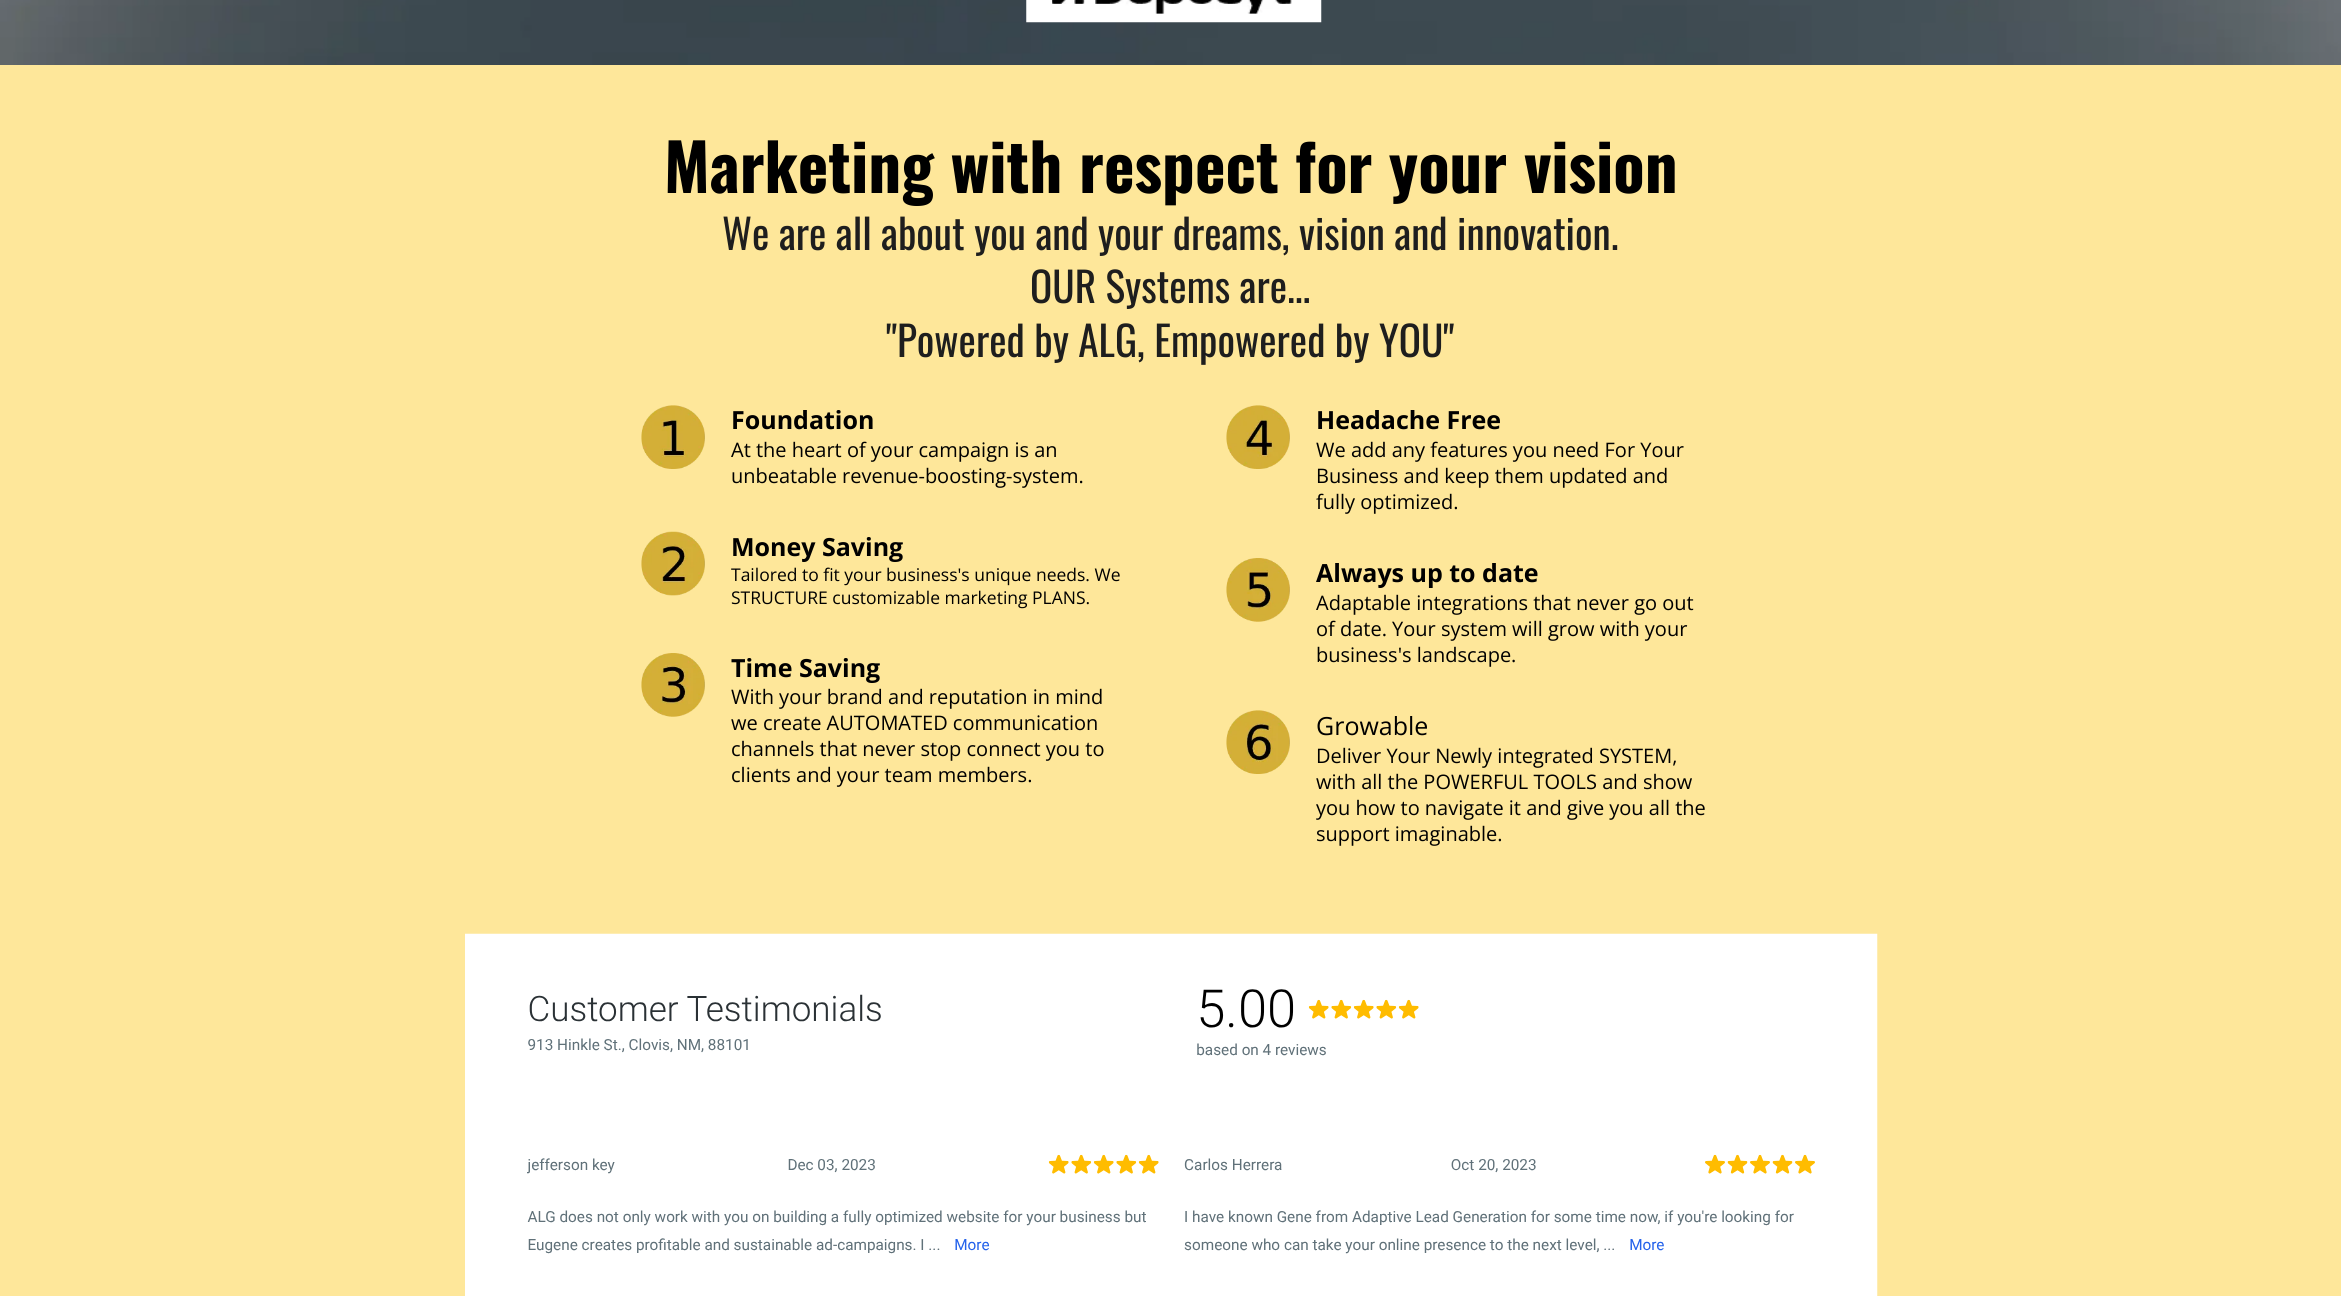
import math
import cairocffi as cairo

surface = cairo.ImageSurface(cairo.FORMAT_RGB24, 2341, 1296)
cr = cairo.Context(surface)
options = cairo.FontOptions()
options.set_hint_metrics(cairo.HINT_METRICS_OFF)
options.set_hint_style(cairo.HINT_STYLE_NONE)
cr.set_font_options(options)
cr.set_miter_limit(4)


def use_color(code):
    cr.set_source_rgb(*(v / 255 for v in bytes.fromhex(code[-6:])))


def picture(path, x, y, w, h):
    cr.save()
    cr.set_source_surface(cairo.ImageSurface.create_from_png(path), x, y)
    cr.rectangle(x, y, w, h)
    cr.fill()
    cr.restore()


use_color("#ffffff")
cr.paint()
picture("img1.png", 0, 0, 2341, 65)
picture("img2.png", 1026, 0, 296, 23)
use_color("#fee79a")
cr.rectangle(0, 65, 2341, 1231)
cr.fill()
cr.select_font_face("Oswald", cairo.FONT_SLANT_NORMAL, cairo.FONT_WEIGHT_BOLD)
cr.set_font_size(65)
use_color("#000000")
cr.move_to(664, 193)
cr.show_text("Marketing with respect for your vision")
cr.select_font_face("Oswald")
cr.set_font_size(41.25)
use_color("#1e1e1e")
cr.move_to(722, 250)
cr.show_text("We are all about you and your dreams, vision and innovation.")
cr.move_to(1030, 303)
cr.show_text("OUR Systems are...")
cr.move_to(886, 357)
cr.show_text("\"Powered by ALG, Empowered by YOU\"")
picture("img3.png", 641, 405, 64, 64)
cr.select_font_face("Open Sans", cairo.FONT_SLANT_NORMAL, cairo.FONT_WEIGHT_BOLD)
cr.set_font_size(25)
use_color("#000000")
cr.move_to(731, 429)
cr.show_text("Foundation")
cr.select_font_face("Open Sans")
cr.set_font_size(20)
cr.move_to(731, 457)
cr.show_text("At the heart of your campaign is an")
cr.move_to(731, 483)
cr.show_text("unbeatable revenue-boosting-system.")
picture("img4.png", 641, 531, 64, 65)
cr.select_font_face("Open Sans", cairo.FONT_SLANT_NORMAL, cairo.FONT_WEIGHT_BOLD)
cr.set_font_size(25)
cr.move_to(731, 556)
cr.show_text("Money Saving")
cr.select_font_face("Open Sans")
cr.set_font_size(17.5)
cr.move_to(731, 581)
cr.show_text("Tailored to fit your business's unique needs. We")
cr.move_to(731, 604)
cr.show_text("STRUCTURE customizable marketing PLANS.")
picture("img5.png", 641, 653, 64, 64)
cr.select_font_face("Open Sans", cairo.FONT_SLANT_NORMAL, cairo.FONT_WEIGHT_BOLD)
cr.set_font_size(25)
cr.move_to(731, 677)
cr.show_text("Time Saving")
cr.select_font_face("Open Sans")
cr.set_font_size(20)
cr.move_to(731, 704)
cr.show_text("With your brand and reputation in mind")
cr.move_to(731, 730)
cr.show_text("we create AUTOMATED communication")
cr.move_to(731, 756)
cr.show_text("channels that never stop connect you to")
cr.move_to(731, 782)
cr.show_text("clients and your team members.")
picture("img6.png", 1226, 405, 64, 64)
cr.select_font_face("Open Sans", cairo.FONT_SLANT_NORMAL, cairo.FONT_WEIGHT_BOLD)
cr.set_font_size(25)
cr.move_to(1316, 429)
cr.show_text("Headache Free")
cr.select_font_face("Open Sans")
cr.set_font_size(20)
cr.move_to(1316, 457)
cr.show_text("We add any features you need For Your")
cr.move_to(1316, 483)
cr.show_text("Business and keep them updated and")
cr.move_to(1316, 509)
cr.show_text("fully optimized.")
picture("img7.png", 1226, 558, 64, 64)
cr.select_font_face("Open Sans", cairo.FONT_SLANT_NORMAL, cairo.FONT_WEIGHT_BOLD)
cr.set_font_size(25)
cr.move_to(1316, 582)
cr.show_text("Always up to date")
cr.select_font_face("Open Sans")
cr.set_font_size(20)
cr.move_to(1316, 610)
cr.show_text("Adaptable integrations that never go out")
cr.move_to(1316, 636)
cr.show_text("of date. Your system will grow with your")
cr.move_to(1316, 662)
cr.show_text("business's landscape.")
picture("img8.png", 1226, 710, 64, 64)
cr.set_font_size(25)
cr.move_to(1316, 735)
cr.show_text("Growable")
cr.set_font_size(20)
cr.move_to(1316, 763)
cr.show_text("Deliver Your Newly integrated SYSTEM,")
cr.move_to(1316, 789)
cr.show_text("with all the POWERFUL TOOLS and show")
cr.move_to(1316, 815)
cr.show_text("you how to navigate it and give you all the")
cr.move_to(1316, 841)
cr.show_text("support imaginable.")
picture("img9.png", 465, 933, 1413, 363)
surface.write_to_png("result.png")
